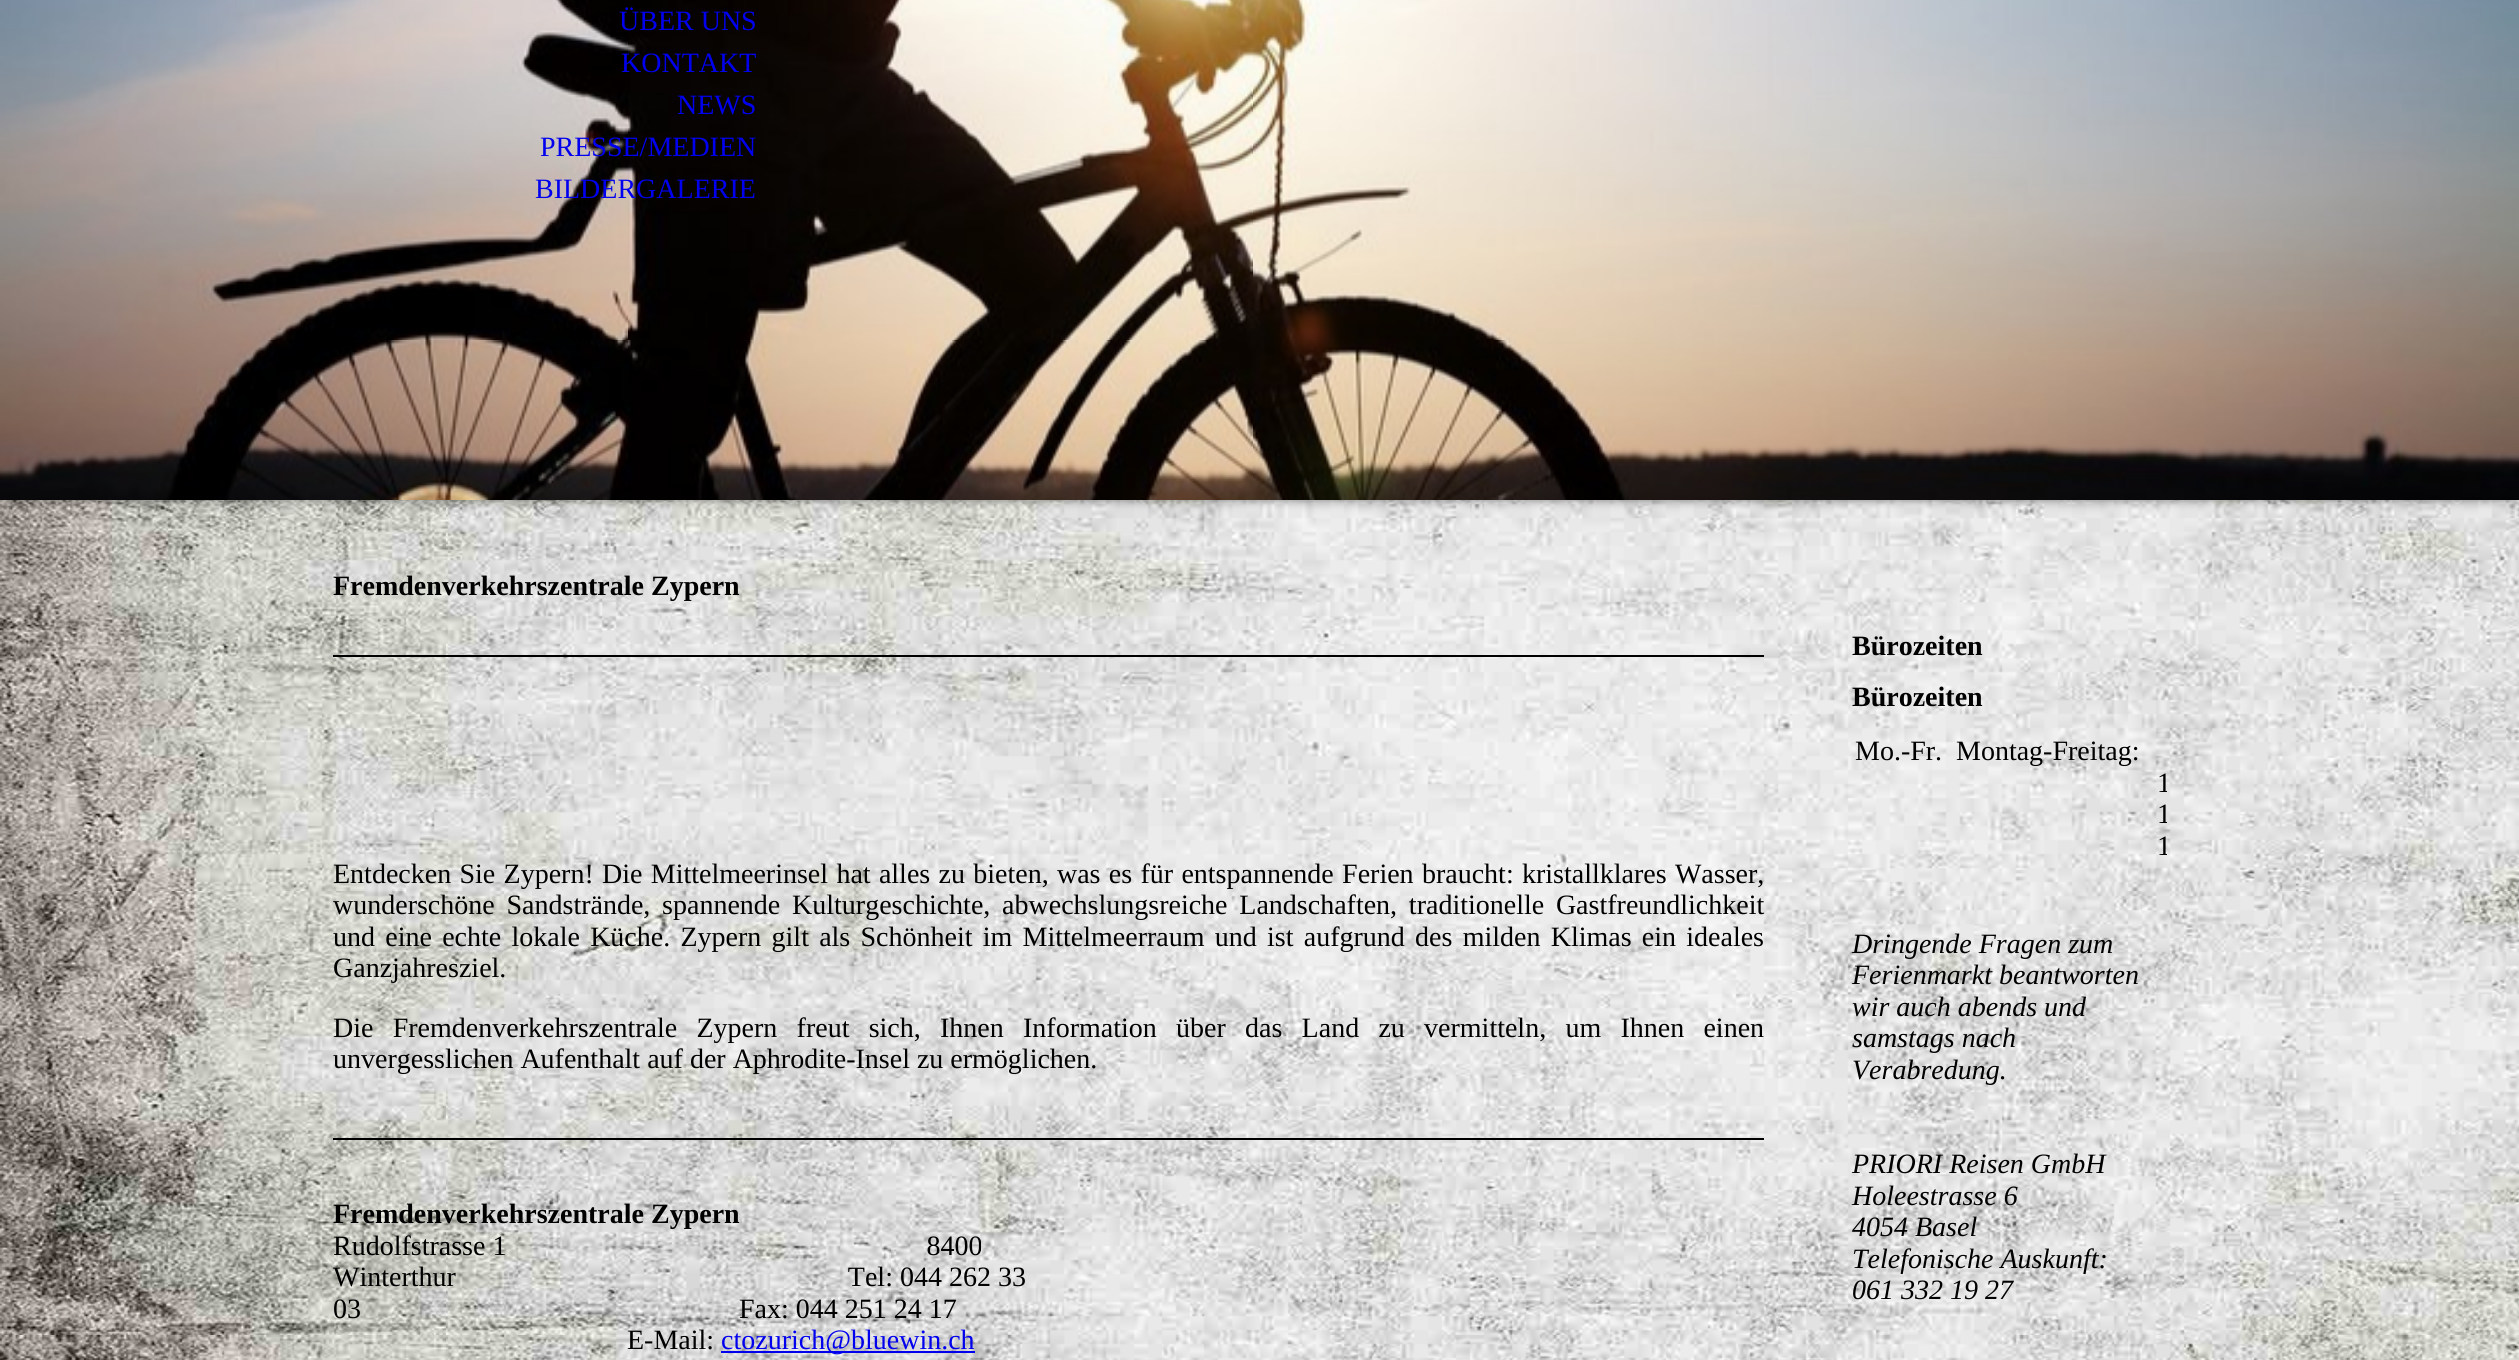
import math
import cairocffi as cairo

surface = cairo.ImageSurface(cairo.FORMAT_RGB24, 2519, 1360)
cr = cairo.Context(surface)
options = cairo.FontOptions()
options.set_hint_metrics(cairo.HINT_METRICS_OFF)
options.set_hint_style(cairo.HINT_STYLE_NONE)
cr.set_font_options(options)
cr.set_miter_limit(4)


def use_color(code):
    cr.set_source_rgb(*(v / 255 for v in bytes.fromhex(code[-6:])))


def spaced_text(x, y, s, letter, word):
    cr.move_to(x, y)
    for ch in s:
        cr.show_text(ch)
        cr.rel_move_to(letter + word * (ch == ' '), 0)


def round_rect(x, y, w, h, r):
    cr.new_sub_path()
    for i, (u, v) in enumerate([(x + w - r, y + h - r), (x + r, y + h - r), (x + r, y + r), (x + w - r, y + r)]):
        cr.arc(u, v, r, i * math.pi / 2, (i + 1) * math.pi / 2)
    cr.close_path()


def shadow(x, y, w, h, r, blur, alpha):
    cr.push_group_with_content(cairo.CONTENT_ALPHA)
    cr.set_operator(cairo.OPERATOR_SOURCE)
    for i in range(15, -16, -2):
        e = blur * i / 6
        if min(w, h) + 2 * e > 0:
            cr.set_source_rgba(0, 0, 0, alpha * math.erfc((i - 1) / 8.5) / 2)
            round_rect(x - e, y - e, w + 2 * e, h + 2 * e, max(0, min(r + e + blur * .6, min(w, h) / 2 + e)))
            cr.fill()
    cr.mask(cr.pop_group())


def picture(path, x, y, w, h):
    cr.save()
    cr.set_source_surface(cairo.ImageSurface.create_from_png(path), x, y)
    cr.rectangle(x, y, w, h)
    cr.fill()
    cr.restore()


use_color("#ffffff")
cr.paint()
picture("img2.png", 0, 500, 2519, 860)
use_color("#000000")
shadow(9, -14, 2502, 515, 0, 4.5, 0.4)
picture("img1.png", 0, 0, 2519, 500)
cr.select_font_face("Liberation Serif")
cr.set_font_size(28)
use_color("#0000ee")
cr.move_to(619, 30)
cr.show_text("ÜBER UNS")
cr.move_to(621, 72)
cr.show_text("KONTAKT")
cr.move_to(677, 114)
cr.show_text("NEWS")
cr.move_to(540, 156)
cr.show_text("PRESSE/MEDIEN")
cr.move_to(535, 198)
cr.show_text("BILDERGALERIE")
cr.select_font_face("Liberation Serif", cairo.FONT_SLANT_NORMAL, cairo.FONT_WEIGHT_BOLD)
use_color("#000000")
cr.move_to(333, 595)
cr.show_text("Fremdenverkehrszentrale Zypern")
cr.rectangle(333, 655, 1431, 2)
cr.fill()
cr.select_font_face("Liberation Serif")
spaced_text(333, 883, "Entdecken Sie Zypern! Die Mittelmeerinsel hat alles zu bieten, was es für entspannende Ferien braucht: kristallklares Wasser,", 0, 1.3)
spaced_text(333, 914, "wunderschöne Sandstrände, spannende Kulturgeschichte, abwechslungsreiche Landschaften, traditionelle Gastfreundlichkeit", 0, 4.75)
spaced_text(333, 946, "und eine echte lokale Küche. Zypern gilt als Schönheit im Mittelmeerraum und ist aufgrund des milden Klimas ein ideales", 0, 3.25)
cr.move_to(333, 977)
cr.show_text("Ganzjahresziel.")
spaced_text(333, 1037, "Die Fremdenverkehrszentrale Zypern freut sich, Ihnen Information über das Land zu vermitteln, um Ihnen einen", 0, 12.25)
cr.move_to(333, 1068)
cr.show_text("unvergesslichen Aufenthalt auf der Aphrodite-Insel zu ermöglichen.")
cr.rectangle(333, 1138, 1431, 2)
cr.fill()
cr.select_font_face("Liberation Serif", cairo.FONT_SLANT_NORMAL, cairo.FONT_WEIGHT_BOLD)
cr.move_to(333, 1223)
cr.show_text("Fremdenverkehrszentrale Zypern")
cr.select_font_face("Liberation Serif")
cr.move_to(333, 1255)
cr.show_text("Rudolfstrasse 1                                                            8400")
cr.move_to(333, 1286)
cr.show_text("Winterthur                                                        Tel: 044 262 33")
cr.move_to(333, 1318)
cr.show_text("03                                                      Fax: 044 251 24 17")
cr.move_to(627, 1349)
cr.show_text("E-Mail:")
use_color("#0000ee")
cr.rectangle(721, 1351, 254, 2)
cr.fill()
cr.move_to(721, 1349)
cr.show_text("ctozurich@bluewin.ch")
cr.select_font_face("Liberation Serif", cairo.FONT_SLANT_NORMAL, cairo.FONT_WEIGHT_BOLD)
use_color("#000000")
cr.move_to(1852, 655)
cr.show_text("Bürozeiten")
cr.move_to(1852, 706)
cr.show_text("Bürozeiten")
cr.select_font_face("Liberation Serif")
cr.move_to(1855, 760)
cr.show_text("Mo.-Fr.")
cr.move_to(1956, 760)
cr.show_text("Montag-Freitag:")
cr.save()
cr.rectangle(1852, 630, 315, 704)
cr.clip()
cr.move_to(2157, 792)
cr.show_text("1")
cr.move_to(2157, 823)
cr.show_text("1")
cr.move_to(2157, 855)
cr.show_text("1")
cr.restore()
cr.select_font_face("Liberation Serif", cairo.FONT_SLANT_ITALIC)
cr.move_to(1852, 953)
cr.show_text("Dringende Fragen zum")
cr.move_to(1852, 984)
cr.show_text("Ferienmarkt beantworten")
cr.move_to(1852, 1016)
cr.show_text("wir auch abends und")
cr.move_to(1852, 1047)
cr.show_text("samstags nach")
cr.move_to(1852, 1079)
cr.show_text("Verabredung.")
cr.move_to(1852, 1173)
cr.show_text("PRIORI Reisen GmbH")
cr.move_to(1852, 1205)
cr.show_text("Holeestrasse 6")
cr.move_to(1852, 1236)
cr.show_text("4054 Basel")
cr.move_to(1852, 1268)
cr.show_text("Telefonische Auskunft:")
cr.move_to(1852, 1299)
cr.show_text("061 332 19 27")
surface.write_to_png("result.png")
